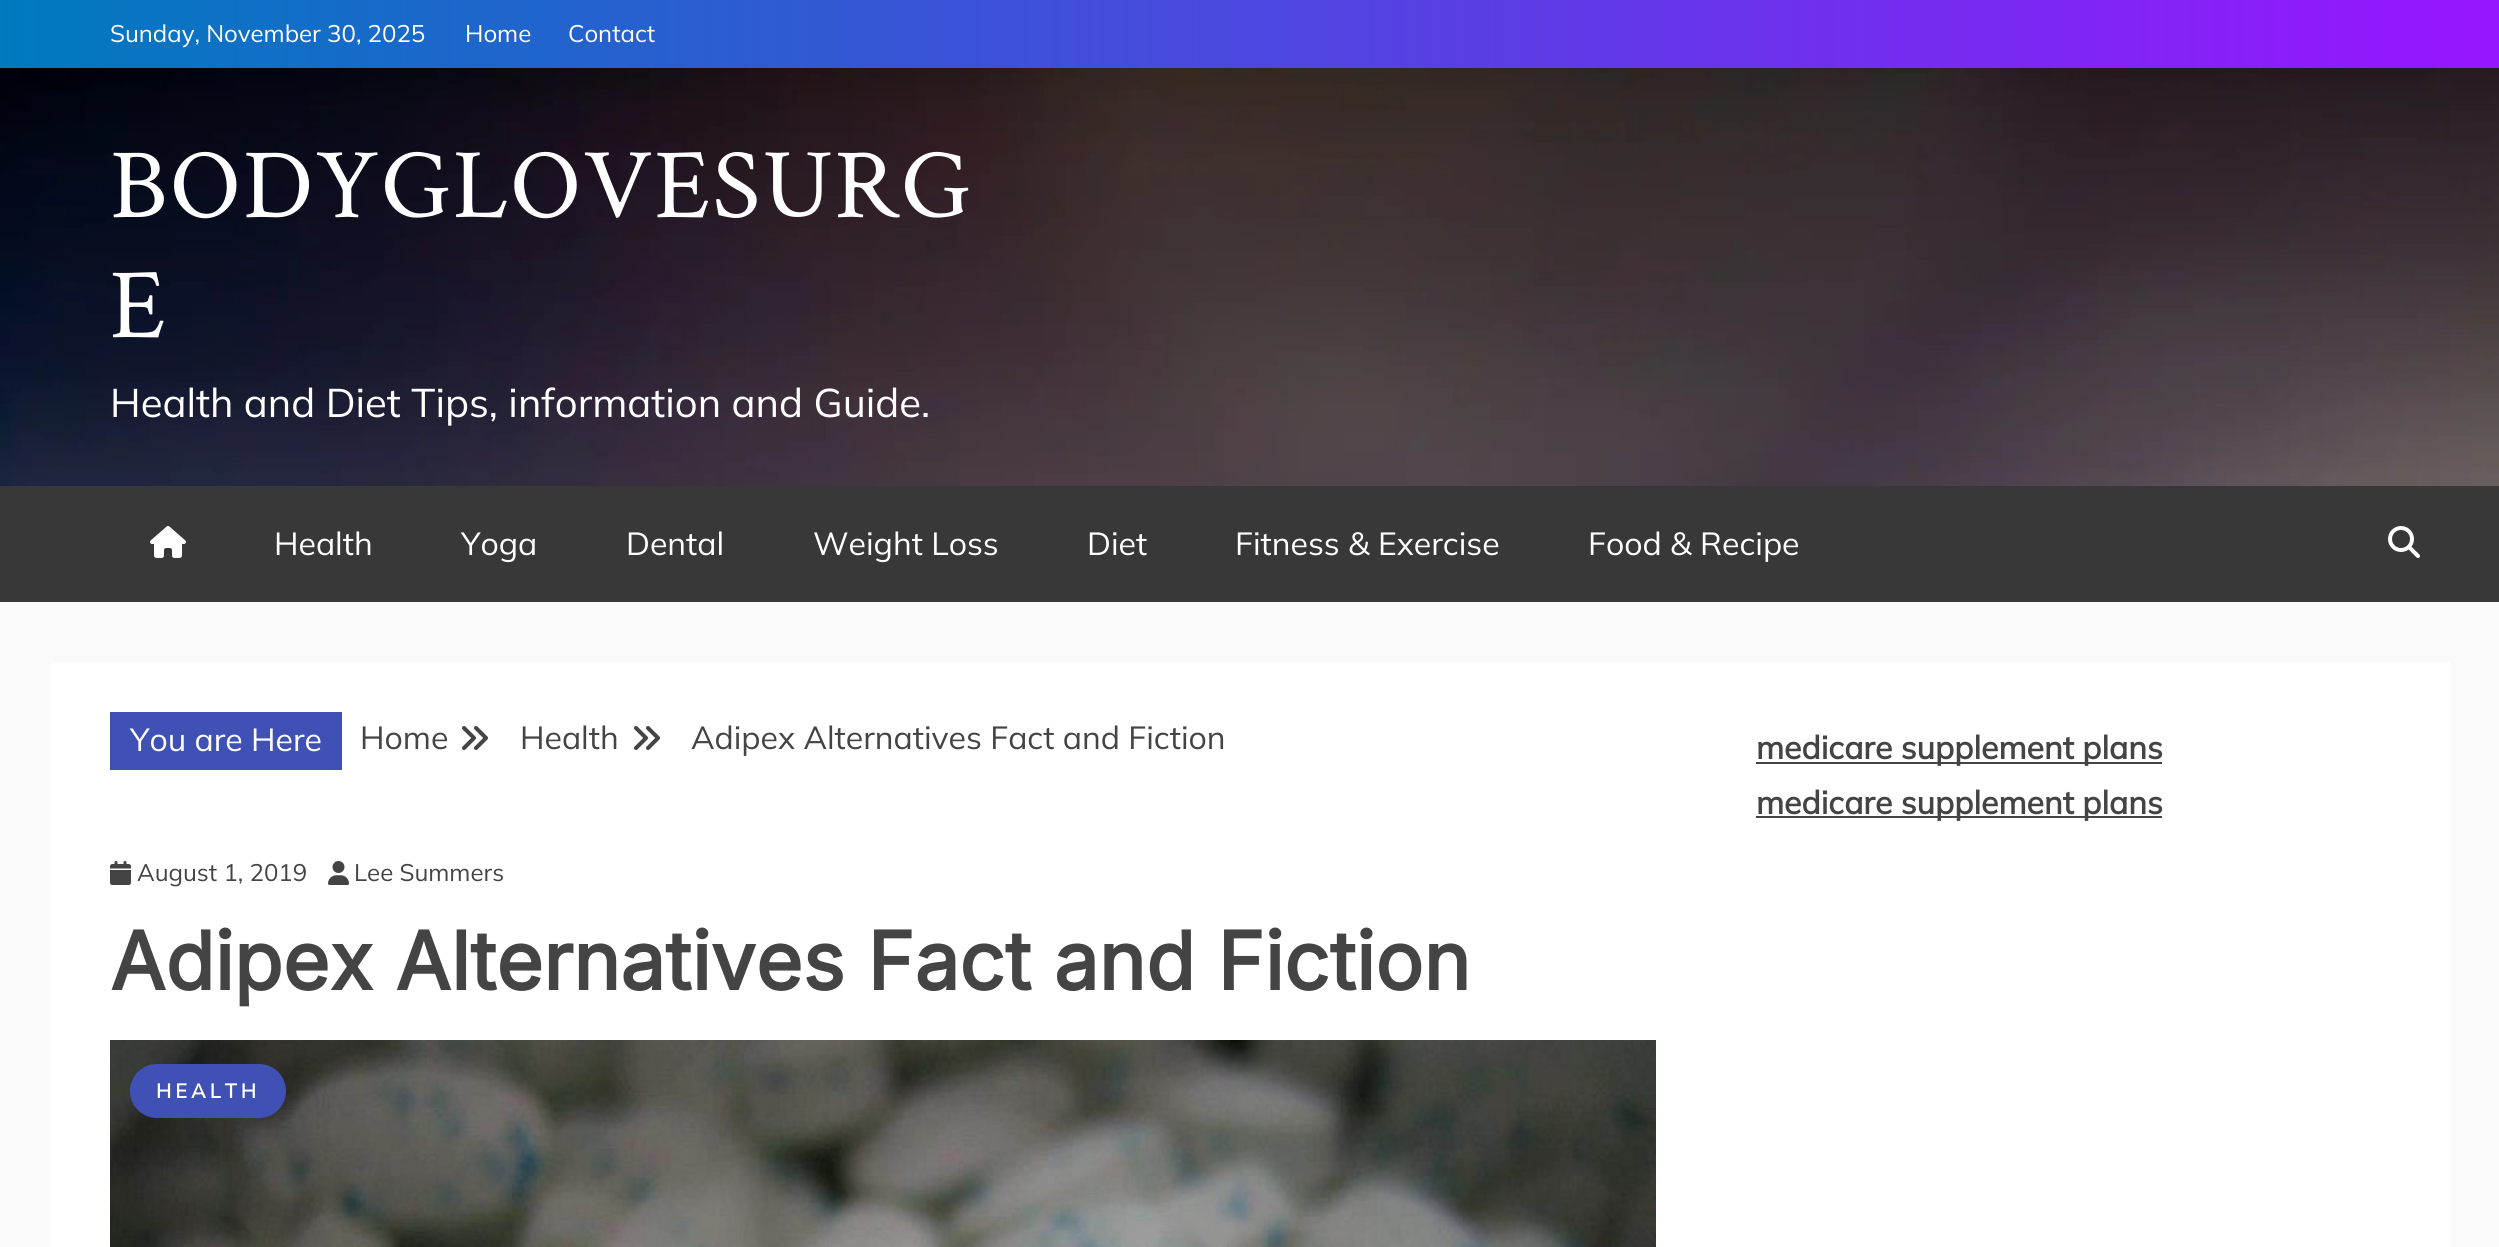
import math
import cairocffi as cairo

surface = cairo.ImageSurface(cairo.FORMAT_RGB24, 2499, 1247)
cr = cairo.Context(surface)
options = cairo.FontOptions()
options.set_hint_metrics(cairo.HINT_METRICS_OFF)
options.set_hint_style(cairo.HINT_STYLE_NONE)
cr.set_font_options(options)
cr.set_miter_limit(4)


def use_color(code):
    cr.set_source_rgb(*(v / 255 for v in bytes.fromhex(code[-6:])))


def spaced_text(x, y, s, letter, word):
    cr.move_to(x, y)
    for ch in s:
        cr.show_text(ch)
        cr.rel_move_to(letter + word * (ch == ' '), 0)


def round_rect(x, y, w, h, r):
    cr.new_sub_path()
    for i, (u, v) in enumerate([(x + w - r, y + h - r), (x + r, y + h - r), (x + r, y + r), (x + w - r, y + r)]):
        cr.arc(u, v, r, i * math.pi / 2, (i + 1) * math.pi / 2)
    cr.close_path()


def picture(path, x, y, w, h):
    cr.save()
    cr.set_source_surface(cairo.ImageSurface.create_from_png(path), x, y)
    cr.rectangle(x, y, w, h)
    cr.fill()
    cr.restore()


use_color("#fafafa")
cr.paint()
gradient = cairo.LinearGradient(0, 34, 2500, 34)
gradient.add_color_stop_rgba(0, 0, 0.478, 0.749, 1)
gradient.add_color_stop_rgba(1, 0.596, 0.082, 1, 1)
cr.set_source(gradient)
cr.rectangle(0, 0, 2499, 68)
cr.fill()
cr.select_font_face("Mulish ExtraLight")
cr.set_font_size(24)
use_color("#ffffff")
cr.move_to(110, 42)
cr.show_text("Sunday, November 30, 2025")
cr.move_to(465, 42)
cr.show_text("Home")
cr.move_to(568, 42)
cr.show_text("Contact")
picture("img1.png", 0, 68, 2499, 418)
cr.select_font_face("Crimson Text")
cr.set_font_size(100)
spaced_text(110, 217, "BODYGLOVESURG", 2, 0)
spaced_text(110, 337, "E", 2, 0)
cr.select_font_face("Mulish ExtraLight")
cr.set_font_size(40)
cr.move_to(110, 417)
cr.show_text("Health and Diet Tips, information and Guide.")
use_color("#383838")
cr.rectangle(0, 486, 2499, 116)
cr.fill()
picture("img2.png", 150, 526, 36, 32)
cr.set_font_size(32)
use_color("#ffffff")
cr.move_to(274, 555)
cr.show_text("Health")
cr.move_to(461, 555)
cr.show_text("Yoga")
cr.move_to(626, 555)
cr.show_text("Dental")
cr.move_to(813, 555)
cr.show_text("Weight Loss")
cr.move_to(1087, 555)
cr.show_text("Diet")
cr.move_to(1235, 555)
cr.show_text("Fitness & Exercise")
cr.move_to(1588, 555)
cr.show_text("Food & Recipe")
picture("img3.png", 2388, 526, 32, 32)
cr.rectangle(50, 662, 2400, 585)
cr.fill()
use_color("#3f51b5")
cr.rectangle(110, 712, 232, 58)
cr.fill()
use_color("#ffffff")
cr.move_to(130, 751)
cr.show_text("You are Here")
use_color("#444444")
cr.move_to(360, 749)
cr.show_text("Home")
picture("img4.png", 462, 726, 26, 24)
cr.move_to(520, 749)
cr.show_text("Health")
picture("img4.png", 634, 726, 26, 24)
cr.move_to(691, 749)
cr.show_text("Adipex Alternatives Fact and Fiction")
picture("img5.png", 110, 861, 21, 24)
cr.set_font_size(24)
cr.move_to(137, 881)
cr.show_text("August 1, 2019")
picture("img6.png", 328, 861, 21, 24)
cr.move_to(354, 881)
cr.show_text("Lee Summers")
cr.select_font_face("Inter", cairo.FONT_SLANT_NORMAL, cairo.FONT_WEIGHT_BOLD)
cr.set_font_size(80)
cr.move_to(110, 990)
cr.show_text("Adipex Alternatives Fact and Fiction")
picture("img7.png", 110, 1040, 1546, 207)
use_color("#3f51b5")
round_rect(130, 1064, 156, 54, 27)
cr.fill()
cr.select_font_face("Mulish", cairo.FONT_SLANT_NORMAL, cairo.FONT_WEIGHT_BOLD)
cr.set_font_size(20)
use_color("#ffffff")
spaced_text(156, 1098, "HEALTH", 4, 0)
use_color("#444444")
cr.rectangle(1756, 762, 406, 2)
cr.fill()
cr.set_font_size(32)
cr.move_to(1756, 759)
cr.show_text("medicare supplement plans")
cr.rectangle(1756, 816, 406, 2)
cr.fill()
cr.move_to(1756, 814)
cr.show_text("medicare supplement plans")
surface.write_to_png("result.png")
